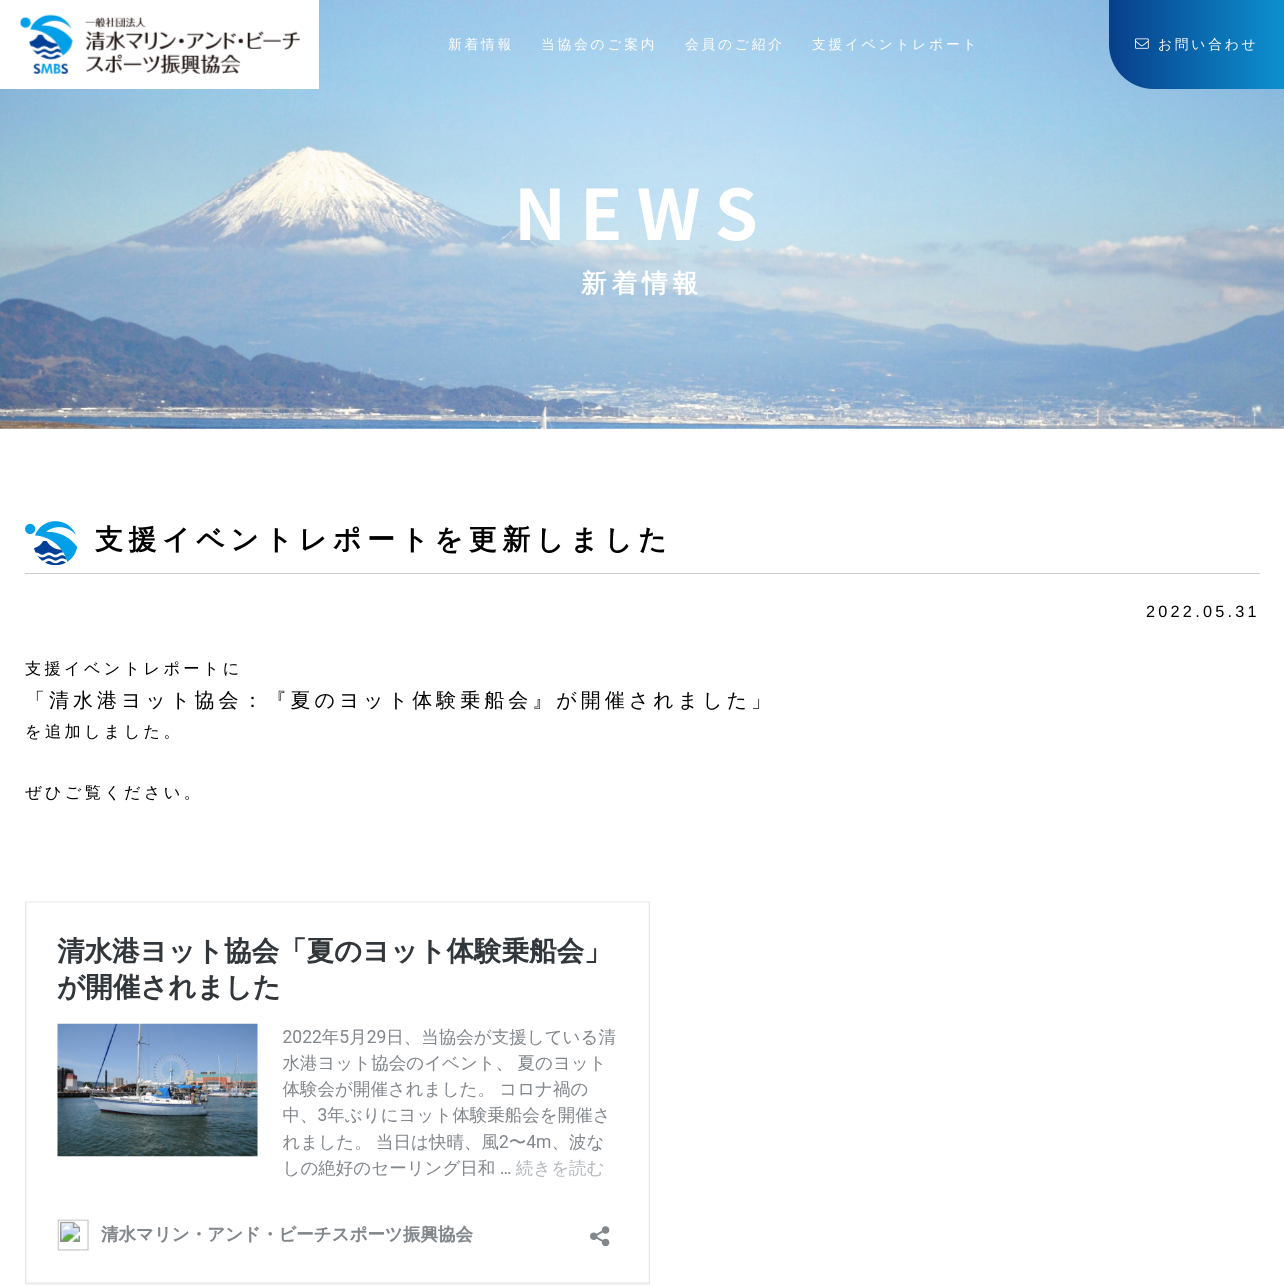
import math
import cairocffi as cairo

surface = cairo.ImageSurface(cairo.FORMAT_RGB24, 1284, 1286)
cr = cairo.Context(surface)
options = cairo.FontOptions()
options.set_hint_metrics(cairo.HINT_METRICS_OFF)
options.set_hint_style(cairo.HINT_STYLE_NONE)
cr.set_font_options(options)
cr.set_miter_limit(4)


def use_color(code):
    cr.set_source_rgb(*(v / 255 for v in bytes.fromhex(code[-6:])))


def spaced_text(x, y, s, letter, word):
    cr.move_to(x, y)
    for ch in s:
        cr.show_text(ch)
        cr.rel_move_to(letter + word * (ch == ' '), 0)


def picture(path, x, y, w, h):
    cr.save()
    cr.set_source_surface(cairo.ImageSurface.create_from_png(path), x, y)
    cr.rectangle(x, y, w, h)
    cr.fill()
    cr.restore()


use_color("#ffffff")
cr.paint()
picture("img3.png", 0, 0, 1284, 429)
use_color("#ffffff")
cr.rectangle(0, 0, 319, 89)
cr.fill()
picture("img1.png", 19, 14, 281, 60)
cr.select_font_face("WenQuanYi Zen Hei Medium")
cr.set_font_size(13.75)
spaced_text(448, 49, "新着情報", 2.75, 0)
spaced_text(541, 49, "当協会のご案内", 2.75, 0)
spaced_text(685, 49, "会員のご紹介", 2.75, 0)
spaced_text(812, 49, "支援イベントレポート", 2.75, 0)
gradient = cairo.LinearGradient(1109, 44, 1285, 44)
gradient.add_color_stop_rgba(0, 0.031, 0.243, 0.541, 1)
gradient.add_color_stop_rgba(1, 0.051, 0.569, 0.816, 1)
cr.set_source(gradient)
cr.new_path()
cr.move_to(1109, 0)
cr.line_to(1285, 0)
cr.line_to(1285, 89)
cr.line_to(1153.5, 89)
cr.curve_to(1129, 89, 1109, 69, 1109, 44.5)
cr.close_path()
cr.fill()
picture("img2.png", 1135, 38, 14, 11)
use_color("#ffffff")
spaced_text(1158, 49, "お問い合わせ", 2.75, 0)
cr.select_font_face("Noto Sans JP Thin")
cr.set_font_size(69.5)
spaced_text(514, 240, "NEWS", 14, 0)
cr.select_font_face("WenQuanYi Zen Hei", cairo.FONT_SLANT_NORMAL, cairo.FONT_WEIGHT_BOLD)
cr.set_font_size(25.5)
spaced_text(581, 292, "新着情報", 5, 0)
picture("img4.png", 25, 521, 53, 44)
use_color("#cccccc")
cr.rectangle(25, 573, 1235, 1)
cr.fill()
cr.set_font_size(27.9)
use_color("#000000")
spaced_text(95, 549, "支援イベントレポートを更新しました", 5.6, 0)
cr.select_font_face("Liberation Sans")
cr.set_font_size(16.25)
spaced_text(1146, 617, "2022.05.31", 3.25, 0)
cr.select_font_face("WenQuanYi Zen Hei Medium")
spaced_text(25, 674, "支援イベントレポートに", 3.25, 0)
cr.set_font_size(20)
spaced_text(25, 707, "「清水港ヨット協会：『夏のヨット体験乗船会』が開催されました」", 4, 0)
cr.set_font_size(16.25)
spaced_text(25, 737, "を追加しました。", 3.25, 0)
spaced_text(25, 798, "ぜひご覧ください。", 3.25, 0)
picture("img5.png", 25, 901, 625, 384)
surface.write_to_png("result.png")
